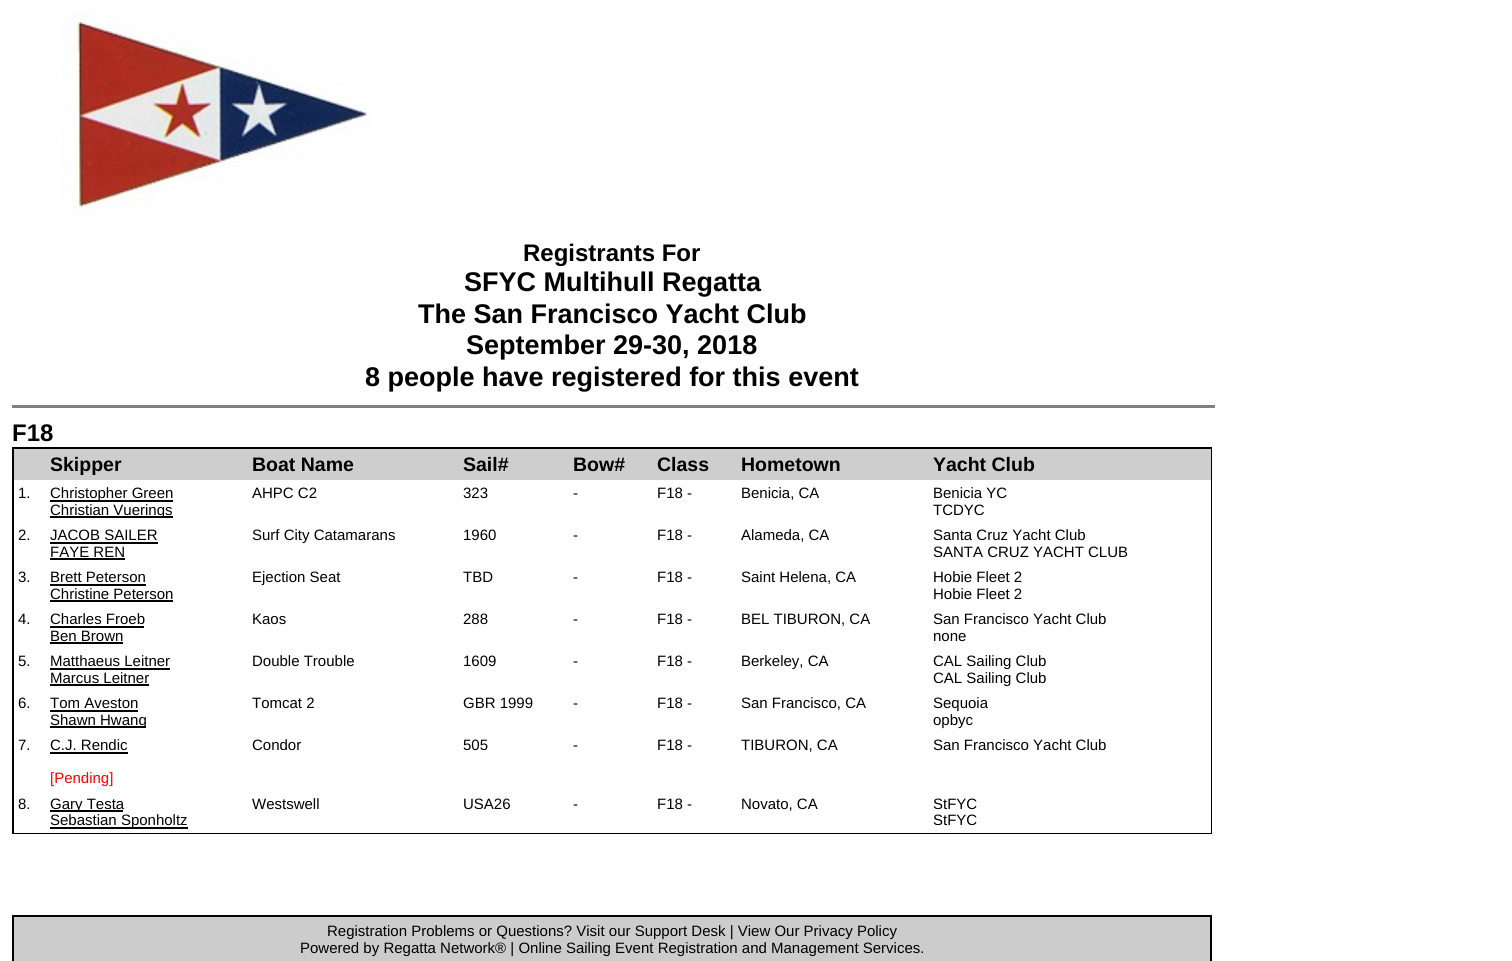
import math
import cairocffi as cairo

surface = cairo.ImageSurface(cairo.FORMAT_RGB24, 1512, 961)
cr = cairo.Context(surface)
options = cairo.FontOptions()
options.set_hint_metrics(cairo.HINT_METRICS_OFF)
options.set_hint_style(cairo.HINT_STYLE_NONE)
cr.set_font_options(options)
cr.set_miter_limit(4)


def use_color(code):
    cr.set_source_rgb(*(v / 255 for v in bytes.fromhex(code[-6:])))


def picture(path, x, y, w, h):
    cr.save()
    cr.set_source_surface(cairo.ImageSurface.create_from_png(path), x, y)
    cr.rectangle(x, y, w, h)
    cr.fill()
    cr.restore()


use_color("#ffffff")
cr.paint()
picture("img1.png", 60, 12, 312, 204)
cr.select_font_face("Liberation Sans", cairo.FONT_SLANT_NORMAL, cairo.FONT_WEIGHT_BOLD)
cr.set_font_size(24)
use_color("#000000")
cr.move_to(523, 261)
cr.show_text("Registrants For")
cr.set_font_size(27)
cr.move_to(464, 291)
cr.show_text("SFYC Multihull Regatta")
cr.move_to(418, 323)
cr.show_text("The San Francisco Yacht Club")
cr.move_to(466, 354)
cr.show_text("September 29-30, 2018")
cr.move_to(365, 386)
cr.show_text("8 people have registered for this event")
use_color("#808080")
cr.rectangle(12, 405, 1203, 3)
cr.fill()
cr.set_font_size(24)
use_color("#000000")
cr.move_to(12, 441)
cr.show_text("F18")
cr.rectangle(12, 447, 1200, 387)
cr.fill()
use_color("#cecece")
cr.rectangle(14, 449, 1197, 31)
cr.fill()
cr.set_font_size(19.5)
use_color("#000000")
cr.move_to(50, 471)
cr.show_text("Skipper")
cr.move_to(252, 471)
cr.show_text("Boat Name")
cr.move_to(463, 471)
cr.show_text("Sail#")
cr.move_to(573, 471)
cr.show_text("Bow#")
cr.move_to(657, 471)
cr.show_text("Class")
cr.move_to(741, 471)
cr.show_text("Hometown")
cr.move_to(933, 471)
cr.show_text("Yacht Club")
use_color("#ffffff")
cr.rectangle(14, 480, 1197, 42)
cr.fill()
cr.select_font_face("Liberation Sans")
cr.set_font_size(15)
use_color("#000000")
cr.move_to(18, 498)
cr.show_text("1.")
cr.rectangle(50, 500, 123, 2)
cr.fill()
cr.move_to(50, 498)
cr.show_text("Christopher Green")
cr.rectangle(50, 516, 123, 2)
cr.fill()
cr.move_to(50, 515)
cr.show_text("Christian Vuerings")
cr.move_to(252, 498)
cr.show_text("AHPC C2")
cr.move_to(463, 498)
cr.show_text("323")
cr.move_to(573, 498)
cr.show_text("-")
cr.move_to(657, 498)
cr.show_text("F18 -")
cr.move_to(741, 498)
cr.show_text("Benicia, CA")
cr.move_to(933, 498)
cr.show_text("Benicia YC")
cr.move_to(933, 515)
cr.show_text("TCDYC")
use_color("#ffffff")
cr.rectangle(14, 522, 1197, 42)
cr.fill()
use_color("#000000")
cr.move_to(18, 540)
cr.show_text("2.")
cr.move_to(50, 540)
cr.show_text("JACOB SAILER")
cr.rectangle(50, 542, 108, 2)
cr.fill()
cr.move_to(50, 557)
cr.show_text("FAYE REN")
cr.rectangle(50, 558, 75, 2)
cr.fill()
cr.move_to(252, 540)
cr.show_text("Surf City Catamarans")
cr.move_to(463, 540)
cr.show_text("1960")
cr.move_to(573, 540)
cr.show_text("-")
cr.move_to(657, 540)
cr.show_text("F18 -")
cr.move_to(741, 540)
cr.show_text("Alameda, CA")
cr.move_to(933, 540)
cr.show_text("Santa Cruz Yacht Club")
cr.move_to(933, 557)
cr.show_text("SANTA CRUZ YACHT CLUB")
use_color("#ffffff")
cr.rectangle(14, 564, 1197, 42)
cr.fill()
use_color("#000000")
cr.move_to(18, 582)
cr.show_text("3.")
cr.move_to(50, 582)
cr.show_text("Brett Peterson")
cr.rectangle(50, 584, 96, 2)
cr.fill()
cr.move_to(50, 599)
cr.show_text("Christine Peterson")
cr.rectangle(50, 600, 123, 2)
cr.fill()
cr.move_to(252, 582)
cr.show_text("Ejection Seat")
cr.move_to(463, 582)
cr.show_text("TBD")
cr.move_to(573, 582)
cr.show_text("-")
cr.move_to(657, 582)
cr.show_text("F18 -")
cr.move_to(741, 582)
cr.show_text("Saint Helena, CA")
cr.move_to(933, 582)
cr.show_text("Hobie Fleet 2")
cr.move_to(933, 599)
cr.show_text("Hobie Fleet 2")
use_color("#ffffff")
cr.rectangle(14, 606, 1197, 42)
cr.fill()
use_color("#000000")
cr.move_to(18, 624)
cr.show_text("4.")
cr.move_to(50, 624)
cr.show_text("Charles Froeb")
cr.rectangle(50, 626, 94, 2)
cr.fill()
cr.move_to(50, 641)
cr.show_text("Ben Brown")
cr.rectangle(50, 642, 73, 2)
cr.fill()
cr.move_to(252, 624)
cr.show_text("Kaos")
cr.move_to(463, 624)
cr.show_text("288")
cr.move_to(573, 624)
cr.show_text("-")
cr.move_to(657, 624)
cr.show_text("F18 -")
cr.move_to(741, 624)
cr.show_text("BEL TIBURON, CA")
cr.move_to(933, 624)
cr.show_text("San Francisco Yacht Club")
cr.move_to(933, 641)
cr.show_text("none")
use_color("#ffffff")
cr.rectangle(14, 648, 1197, 42)
cr.fill()
use_color("#000000")
cr.move_to(18, 666)
cr.show_text("5.")
cr.move_to(50, 666)
cr.show_text("Matthaeus Leitner")
cr.rectangle(50, 668, 120, 2)
cr.fill()
cr.move_to(50, 683)
cr.show_text("Marcus Leitner")
cr.rectangle(50, 684, 99, 2)
cr.fill()
cr.move_to(252, 666)
cr.show_text("Double Trouble")
cr.move_to(463, 666)
cr.show_text("1609")
cr.move_to(573, 666)
cr.show_text("-")
cr.move_to(657, 666)
cr.show_text("F18 -")
cr.move_to(741, 666)
cr.show_text("Berkeley, CA")
cr.move_to(933, 666)
cr.show_text("CAL Sailing Club")
cr.move_to(933, 683)
cr.show_text("CAL Sailing Club")
use_color("#ffffff")
cr.rectangle(14, 690, 1197, 42)
cr.fill()
use_color("#000000")
cr.move_to(18, 708)
cr.show_text("6.")
cr.move_to(50, 708)
cr.show_text("Tom Aveston")
cr.rectangle(50, 710, 88, 2)
cr.fill()
cr.rectangle(50, 726, 96, 2)
cr.fill()
cr.move_to(50, 725)
cr.show_text("Shawn Hwang")
cr.move_to(252, 708)
cr.show_text("Tomcat 2")
cr.move_to(463, 708)
cr.show_text("GBR 1999")
cr.move_to(573, 708)
cr.show_text("-")
cr.move_to(657, 708)
cr.show_text("F18 -")
cr.move_to(741, 708)
cr.show_text("San Francisco, CA")
cr.move_to(933, 708)
cr.show_text("Sequoia")
cr.move_to(933, 725)
cr.show_text("opbyc")
use_color("#ffffff")
cr.rectangle(14, 732, 1197, 59)
cr.fill()
use_color("#000000")
cr.move_to(18, 750)
cr.show_text("7.")
cr.move_to(50, 750)
cr.show_text("C.J. Rendic")
cr.rectangle(50, 752, 78, 2)
cr.fill()
use_color("#ff0000")
cr.move_to(50, 783)
cr.show_text("[Pending]")
use_color("#000000")
cr.move_to(252, 750)
cr.show_text("Condor")
cr.move_to(463, 750)
cr.show_text("505")
cr.move_to(573, 750)
cr.show_text("-")
cr.move_to(657, 750)
cr.show_text("F18 -")
cr.move_to(741, 750)
cr.show_text("TIBURON, CA")
cr.move_to(933, 750)
cr.show_text("San Francisco Yacht Club")
use_color("#ffffff")
cr.rectangle(14, 791, 1197, 42)
cr.fill()
use_color("#000000")
cr.move_to(18, 809)
cr.show_text("8.")
cr.rectangle(50, 810, 73, 2)
cr.fill()
cr.move_to(50, 809)
cr.show_text("Gary Testa")
cr.rectangle(50, 827, 138, 2)
cr.fill()
cr.move_to(50, 825)
cr.show_text("Sebastian Sponholtz")
cr.move_to(252, 809)
cr.show_text("Westswell")
cr.move_to(463, 809)
cr.show_text("USA26")
cr.move_to(573, 809)
cr.show_text("-")
cr.move_to(657, 809)
cr.show_text("F18 -")
cr.move_to(741, 809)
cr.show_text("Novato, CA")
cr.move_to(933, 809)
cr.show_text("StFYC")
cr.move_to(933, 825)
cr.show_text("StFYC")
use_color("#cccccc")
cr.rectangle(13, 916, 1198, 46)
cr.fill_preserve()
use_color("#000000")
cr.stroke()
cr.move_to(327, 936)
cr.show_text("Registration Problems or Questions? Visit our Support Desk | View Our Privacy Policy")
cr.move_to(300, 953)
cr.show_text("Powered by Regatta Network® | Online Sailing Event Registration and Management Services.")
surface.write_to_png("result.png")
